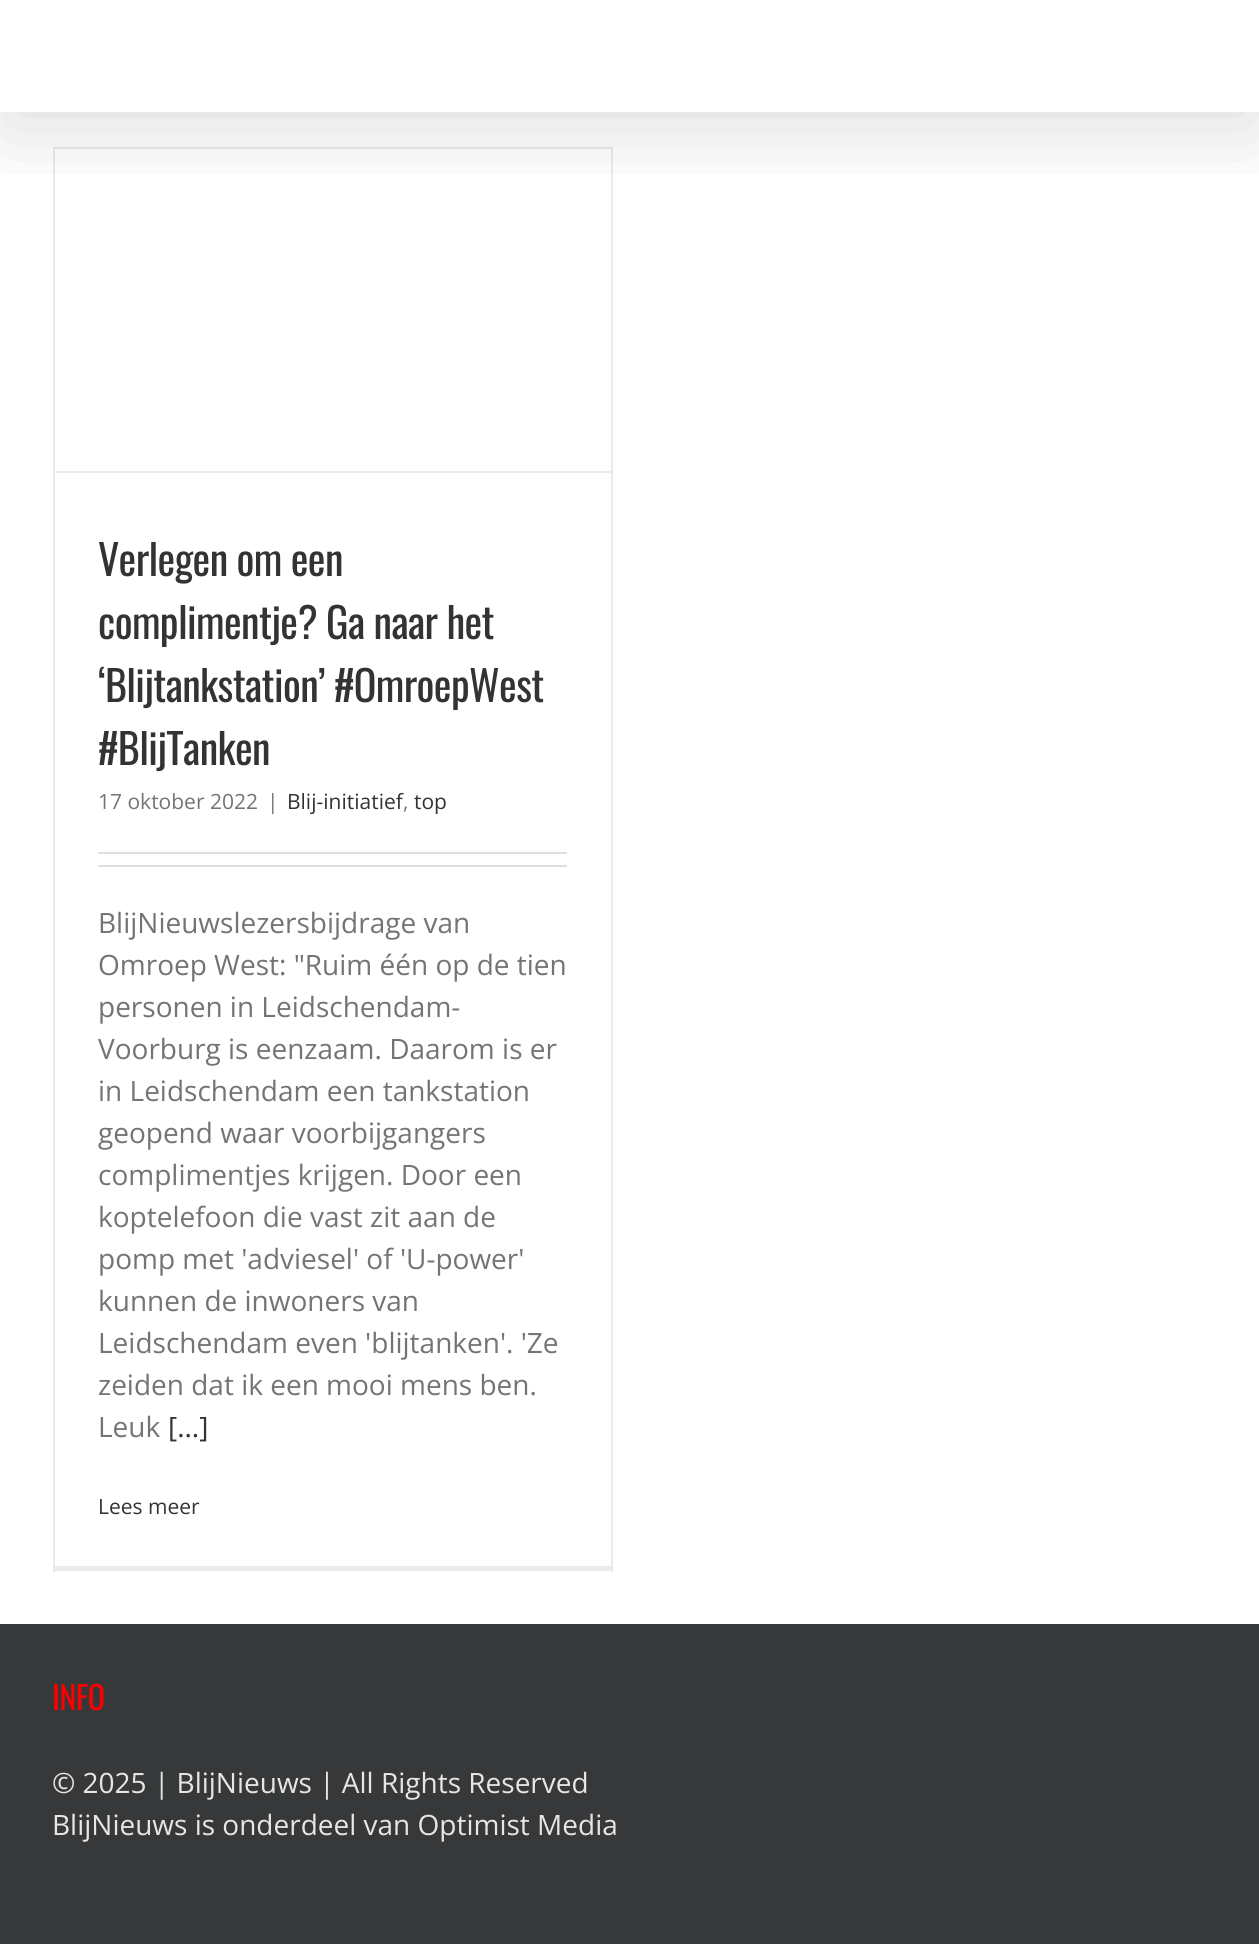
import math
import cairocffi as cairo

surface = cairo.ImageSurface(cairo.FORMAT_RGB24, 1259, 1944)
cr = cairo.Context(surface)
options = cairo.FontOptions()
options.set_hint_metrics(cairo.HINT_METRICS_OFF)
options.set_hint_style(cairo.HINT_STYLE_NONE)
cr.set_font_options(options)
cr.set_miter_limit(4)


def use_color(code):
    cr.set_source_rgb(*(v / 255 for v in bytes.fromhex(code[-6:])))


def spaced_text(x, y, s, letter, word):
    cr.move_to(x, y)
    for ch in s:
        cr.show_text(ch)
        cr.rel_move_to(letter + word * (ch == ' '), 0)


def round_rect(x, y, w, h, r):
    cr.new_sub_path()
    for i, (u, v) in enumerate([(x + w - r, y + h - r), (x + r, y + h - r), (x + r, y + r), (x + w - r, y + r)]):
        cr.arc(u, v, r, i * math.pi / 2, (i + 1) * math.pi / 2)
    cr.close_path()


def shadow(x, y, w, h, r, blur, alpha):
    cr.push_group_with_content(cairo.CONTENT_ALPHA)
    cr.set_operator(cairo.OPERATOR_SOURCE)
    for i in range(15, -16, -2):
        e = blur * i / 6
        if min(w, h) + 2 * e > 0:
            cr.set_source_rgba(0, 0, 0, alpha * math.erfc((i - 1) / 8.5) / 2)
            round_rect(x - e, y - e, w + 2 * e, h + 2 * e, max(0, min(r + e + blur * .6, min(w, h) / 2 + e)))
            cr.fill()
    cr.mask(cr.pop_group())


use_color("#ffffff")
cr.paint()
use_color("#ebeaea")
cr.rectangle(53, 147, 560, 2)
cr.fill()
cr.rectangle(611, 147, 2, 1425)
cr.fill()
cr.rectangle(53, 1566, 560, 5)
cr.fill()
cr.rectangle(53, 147, 2, 1425)
cr.fill()
cr.save()
cr.rectangle(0, 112, 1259, 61)
cr.clip()
use_color("#000000")
shadow(4, 21, 1253, 105, 0, 44, 0.14)
cr.restore()
cr.rectangle(54, 471, 557, 2)
cr.fill()
cr.select_font_face("Oswald")
cr.set_font_size(42)
use_color("#333333")
spaced_text(98, 576, "Verlegen om een", -0.6, 0)
spaced_text(98, 639, "complimentje? Ga naar het", -0.6, 0)
spaced_text(98, 702, "‘Blijtankstation’ #OmroepWest", -0.6, 0)
spaced_text(98, 765, "#BlijTanken", -0.6, 0)
cr.select_font_face("Open Sans")
cr.set_font_size(21)
use_color("#747474")
cr.move_to(98, 809)
cr.show_text("17 oktober 2022")
cr.move_to(267, 809)
cr.show_text("|")
use_color("#333333")
cr.move_to(287, 809)
cr.show_text("Blij-initiatief")
use_color("#747474")
cr.move_to(403, 809)
cr.show_text(",")
use_color("#333333")
cr.move_to(414, 809)
cr.show_text("top")
use_color("#e0dede")
cr.rectangle(98, 852, 469, 2)
cr.fill()
cr.rectangle(98, 865, 469, 2)
cr.fill()
cr.set_font_size(28)
use_color("#747474")
cr.move_to(98, 933)
cr.show_text("BlijNieuwslezersbijdrage van")
cr.move_to(98, 975)
cr.show_text("Omroep West: \"Ruim één op de tien")
cr.move_to(98, 1017)
cr.show_text("personen in Leidschendam-")
cr.move_to(98, 1059)
cr.show_text("Voorburg is eenzaam. Daarom is er")
cr.move_to(98, 1101)
cr.show_text("in Leidschendam een tankstation")
cr.move_to(98, 1143)
cr.show_text("geopend waar voorbijgangers")
cr.move_to(98, 1185)
cr.show_text("complimentjes krijgen. Door een")
cr.move_to(98, 1227)
cr.show_text("koptelefoon die vast zit aan de")
cr.move_to(98, 1269)
cr.show_text("pomp met 'adviesel' of 'U-power'")
cr.move_to(98, 1311)
cr.show_text("kunnen de inwoners van")
cr.move_to(98, 1353)
cr.show_text("Leidschendam even 'blijtanken'. 'Ze")
cr.move_to(98, 1395)
cr.show_text("zeiden dat ik een mooi mens ben.")
cr.move_to(98, 1437)
cr.show_text("Leuk")
use_color("#333333")
cr.move_to(168, 1437)
cr.show_text("[...]")
cr.set_font_size(21)
cr.move_to(98, 1514)
cr.show_text("Lees meer")
use_color("#363839")
cr.rectangle(0, 1624, 1259, 320)
cr.fill()
cr.select_font_face("Oswald")
cr.set_font_size(32)
use_color("#ff0000")
spaced_text(52, 1710, "INFO", -0.5, 0)
cr.select_font_face("Open Sans")
cr.set_font_size(28)
use_color("#e6e6e6")
cr.move_to(52, 1793)
cr.show_text("© 2025 | BlijNieuws | All Rights Reserved")
cr.move_to(52, 1835)
cr.show_text("BlijNieuws is onderdeel van Optimist Media")
surface.write_to_png("result.png")
